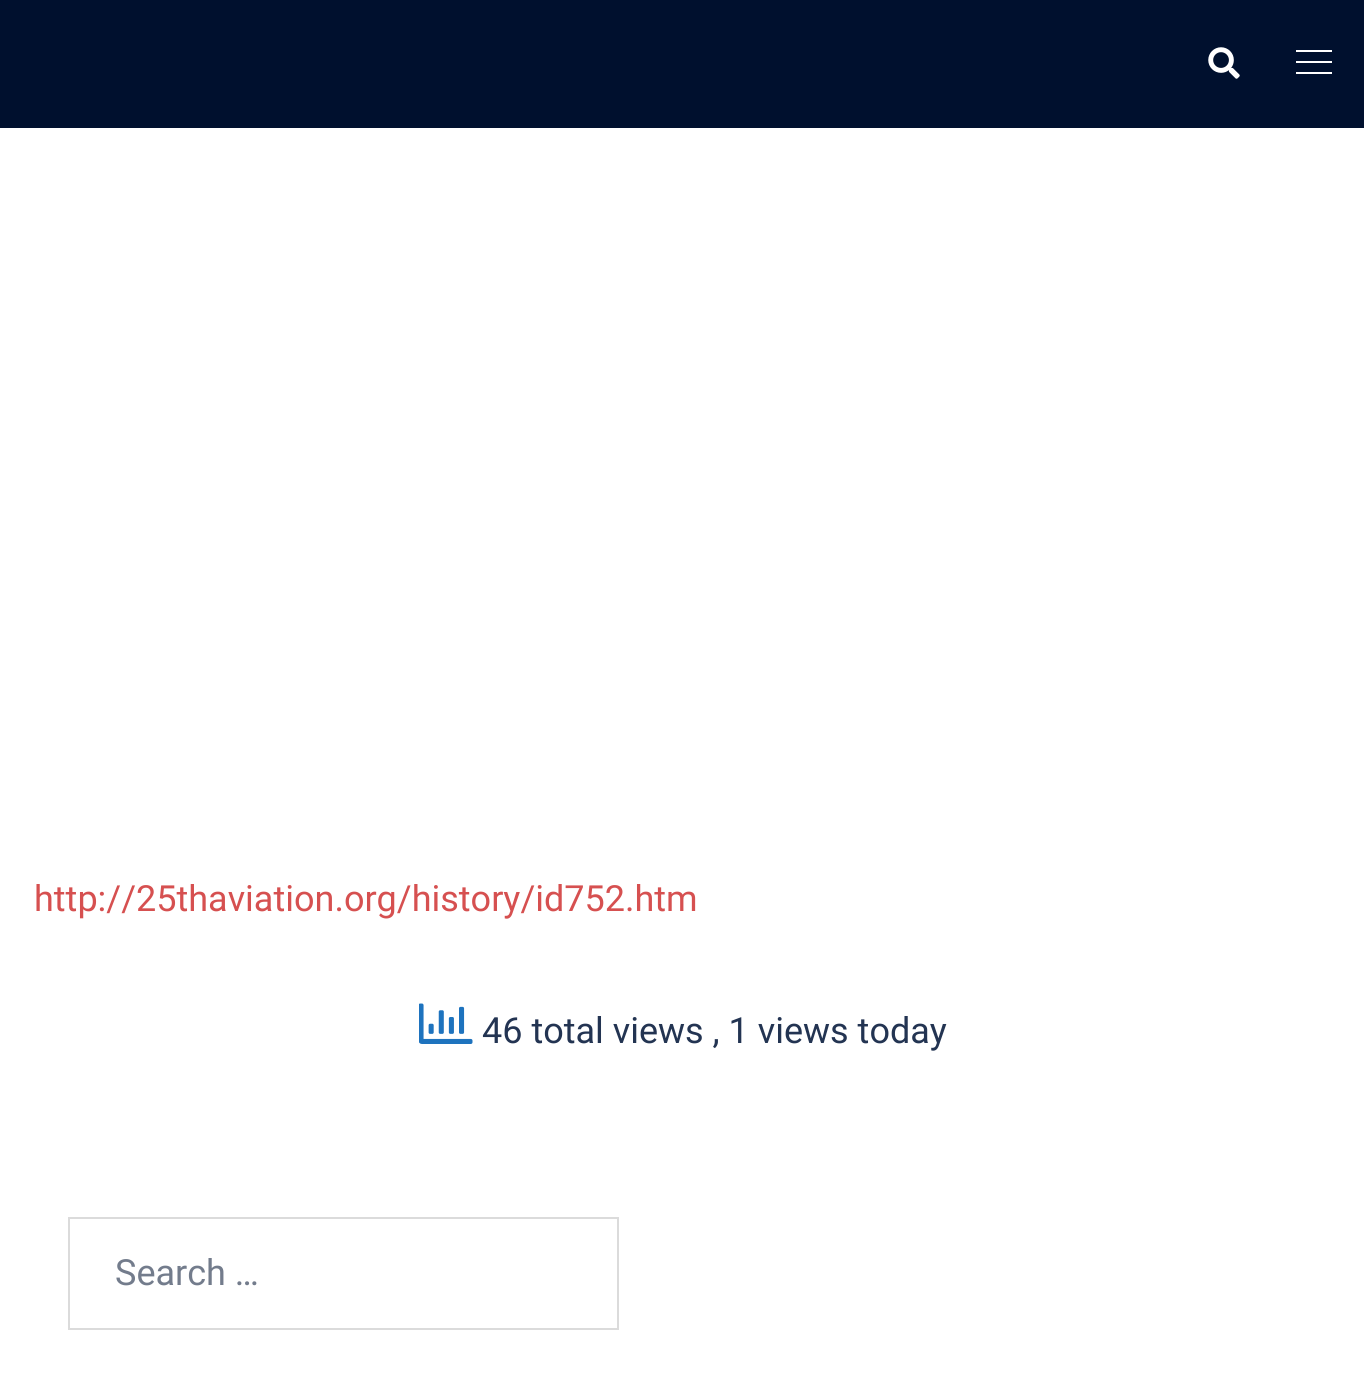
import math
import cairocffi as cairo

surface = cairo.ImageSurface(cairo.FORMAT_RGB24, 1364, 1378)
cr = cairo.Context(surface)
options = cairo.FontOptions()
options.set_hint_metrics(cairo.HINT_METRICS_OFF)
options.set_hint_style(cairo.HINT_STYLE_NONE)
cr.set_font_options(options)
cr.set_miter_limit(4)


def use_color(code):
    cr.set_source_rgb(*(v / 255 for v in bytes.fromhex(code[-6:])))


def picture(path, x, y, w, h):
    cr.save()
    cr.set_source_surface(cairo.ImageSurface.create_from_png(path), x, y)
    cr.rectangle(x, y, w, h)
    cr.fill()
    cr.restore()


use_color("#ffffff")
cr.paint()
use_color("#00102e")
cr.rectangle(0, 0, 1364, 128)
cr.fill()
picture("img1.png", 1208, 47, 32, 32)
use_color("#ffffff")
cr.rectangle(1296, 50, 36, 2)
cr.fill()
cr.rectangle(1296, 61, 36, 2)
cr.fill()
cr.rectangle(1296, 72, 36, 2)
cr.fill()
cr.select_font_face("Roboto")
cr.set_font_size(36)
use_color("#d65050")
cr.move_to(34, 911)
cr.show_text("http://25thaviation.org/history/id752.htm")
picture("img2.png", 419, 1003, 54, 41)
use_color("#233452")
cr.move_to(482, 1043)
cr.show_text("46 total views , 1 views today")
cr.rectangle(69, 1218, 549, 111)
use_color("#dbdbdb")
cr.stroke()
use_color("#737c8c")
cr.move_to(115, 1285)
cr.show_text("Search …")
surface.write_to_png("result.png")
